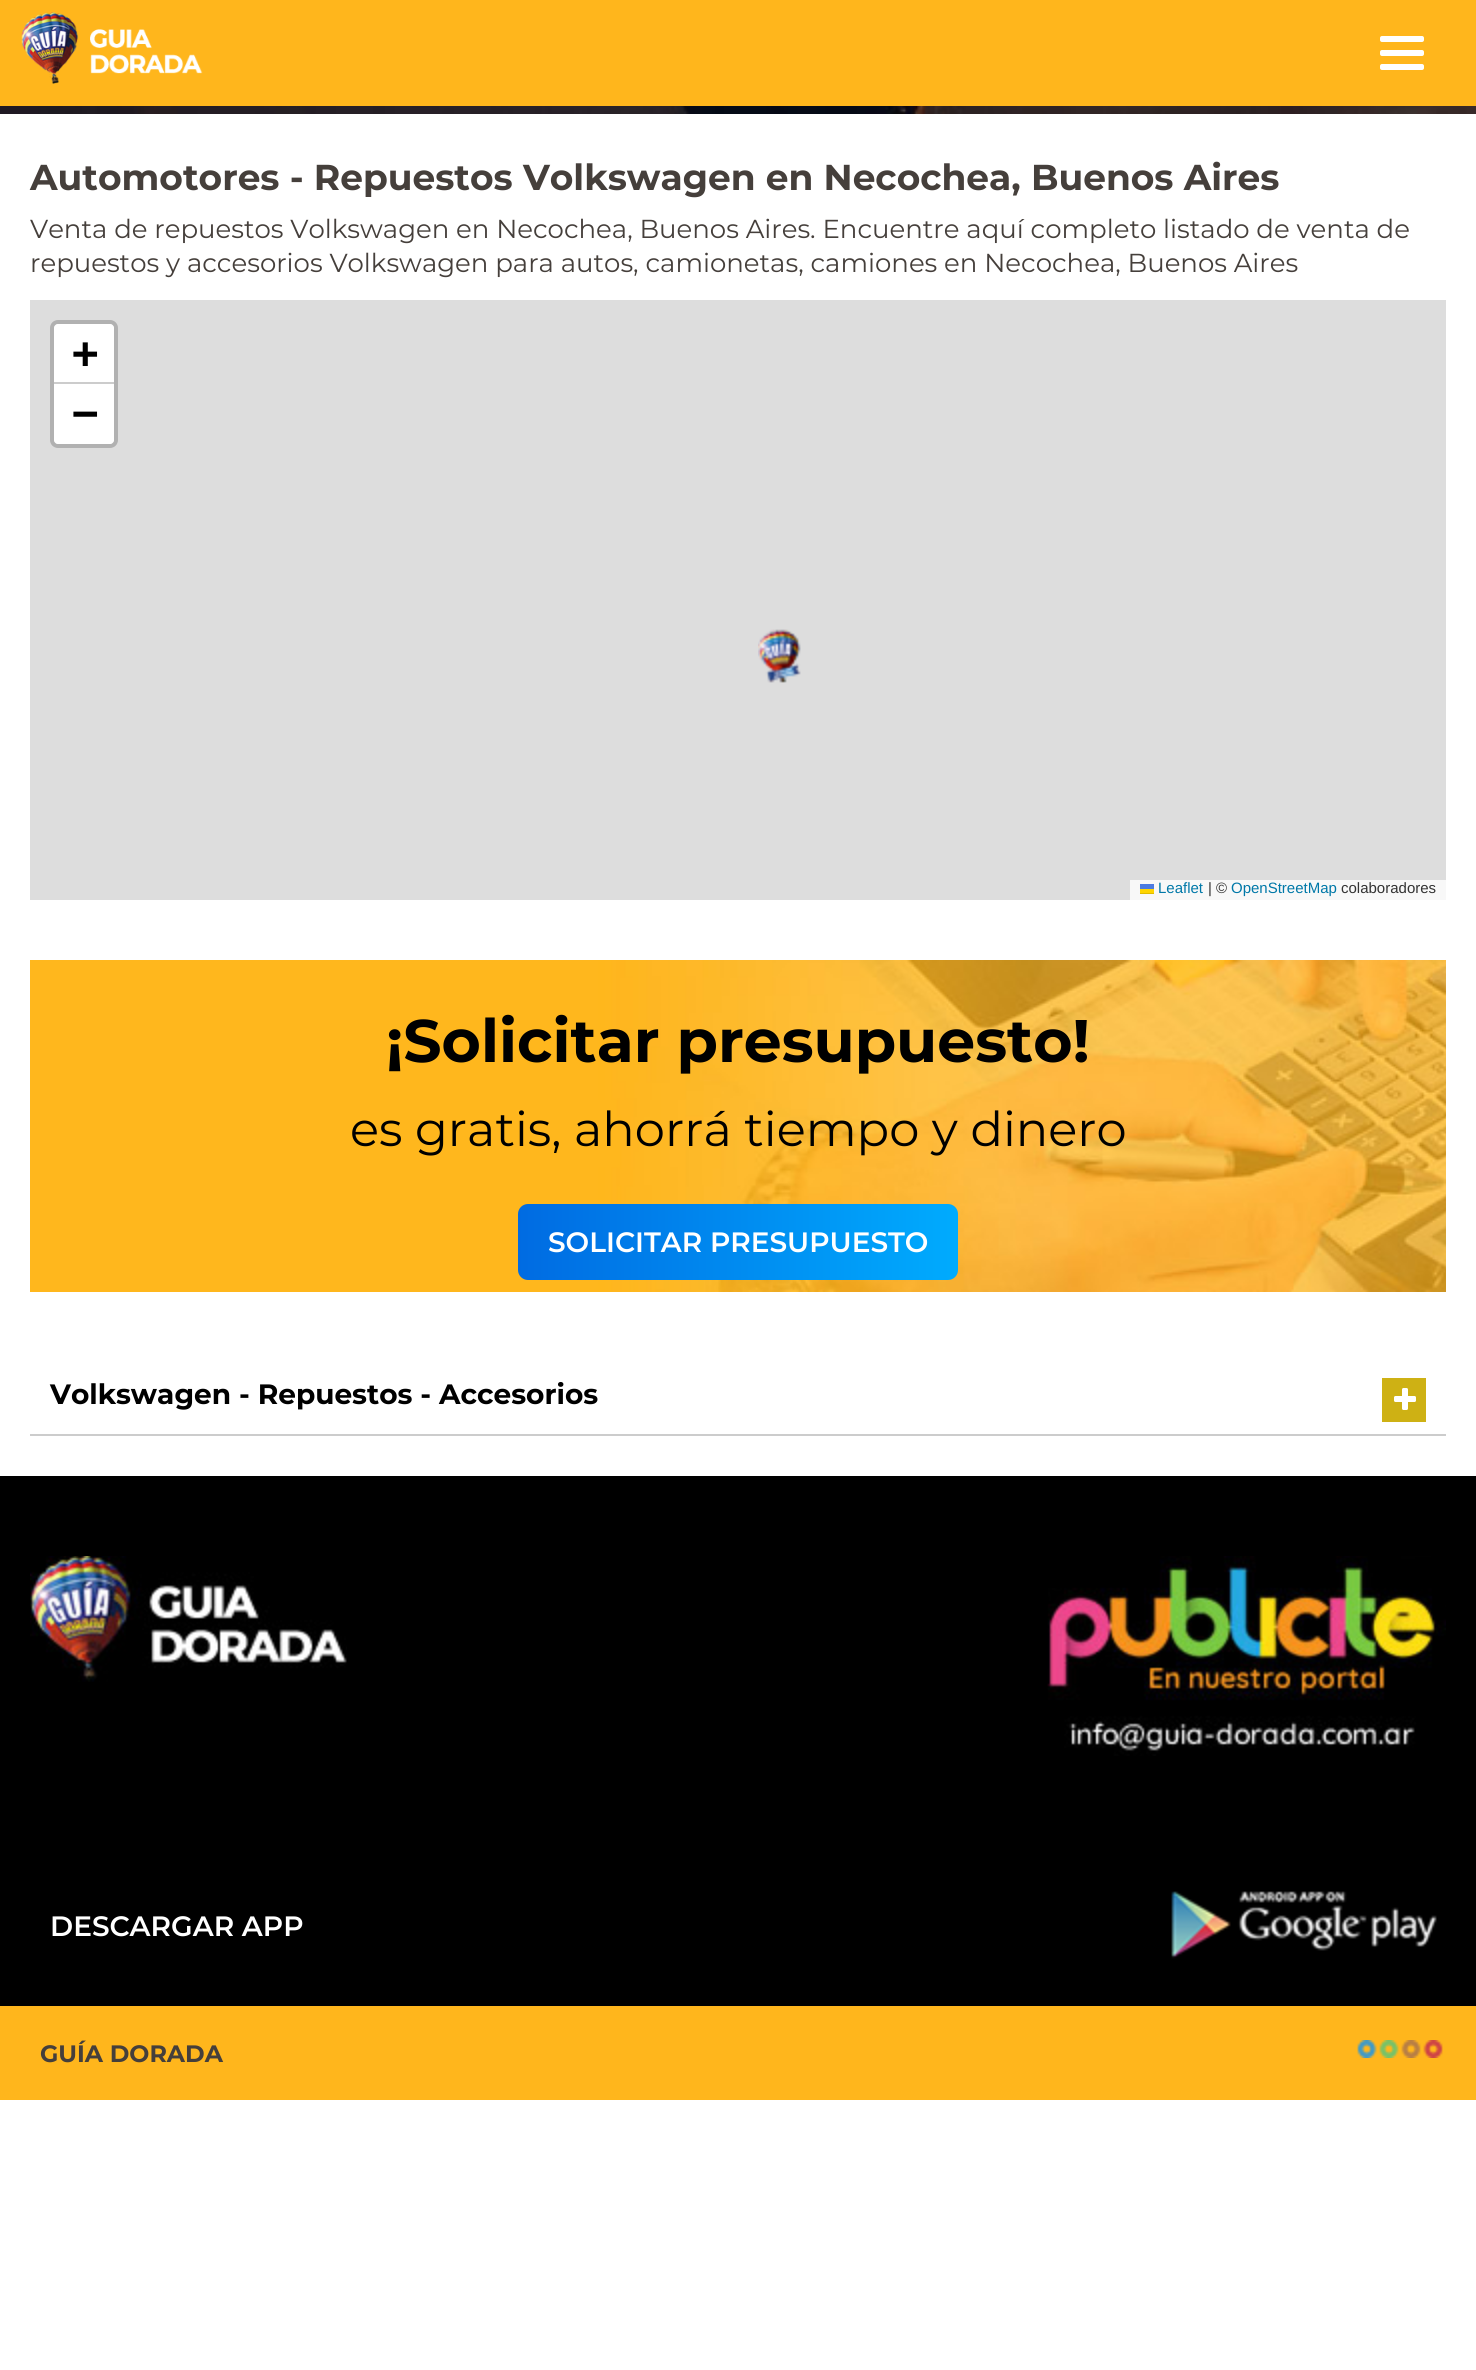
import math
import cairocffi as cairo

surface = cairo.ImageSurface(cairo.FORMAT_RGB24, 1476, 2370)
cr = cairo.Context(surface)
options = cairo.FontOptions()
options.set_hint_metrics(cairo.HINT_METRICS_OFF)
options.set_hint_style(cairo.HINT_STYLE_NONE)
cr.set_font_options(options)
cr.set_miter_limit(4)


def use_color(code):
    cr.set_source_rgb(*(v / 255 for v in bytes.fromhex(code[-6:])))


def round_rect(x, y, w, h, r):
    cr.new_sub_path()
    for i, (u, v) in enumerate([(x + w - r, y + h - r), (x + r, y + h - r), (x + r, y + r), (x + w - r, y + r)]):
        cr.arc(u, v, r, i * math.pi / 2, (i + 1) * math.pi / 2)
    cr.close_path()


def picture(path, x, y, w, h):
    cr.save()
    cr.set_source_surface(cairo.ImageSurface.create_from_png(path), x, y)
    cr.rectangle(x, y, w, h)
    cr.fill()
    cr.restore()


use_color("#ffffff")
cr.paint()
use_color("#ffb61c")
cr.rectangle(0, 0, 1476, 106)
cr.fill()
picture("img1.png", 21, 12, 182, 72)
use_color("#ffffff")
round_rect(1380, 36, 44, 6, 2)
cr.fill()
round_rect(1380, 50, 44, 6, 2)
cr.fill()
round_rect(1380, 64, 44, 6, 2)
cr.fill()
picture("img2.png", 0, 106, 1476, 8)
cr.select_font_face("Montserrat", cairo.FONT_SLANT_NORMAL, cairo.FONT_WEIGHT_BOLD)
cr.set_font_size(36)
use_color("#453f3b")
cr.move_to(30, 190)
cr.show_text("Automotores - Repuestos Volkswagen en Necochea, Buenos Aires")
cr.select_font_face("Montserrat")
cr.set_font_size(26)
cr.move_to(30, 238)
cr.show_text("Venta de repuestos Volkswagen en Necochea, Buenos Aires. Encuentre aquí completo listado de venta de")
cr.move_to(30, 272)
cr.show_text("repuestos y accesorios Volkswagen para autos, camionetas, camiones en Necochea, Buenos Aires")
use_color("#dddddd")
cr.rectangle(30, 300, 1416, 600)
cr.fill()
round_rect(52, 322, 64, 124, 6)
use_color("#b1b1b1")
cr.set_line_width(4)
cr.stroke()
use_color("#ffffff")
cr.new_path()
cr.move_to(58, 324)
cr.line_to(110, 324)
cr.curve_to(112, 324, 114, 326, 114, 328)
cr.line_to(114, 384)
cr.line_to(54, 384)
cr.line_to(54, 328)
cr.curve_to(54, 326, 56, 324, 58, 324)
cr.close_path()
cr.fill()
use_color("#cccccc")
cr.rectangle(54, 382, 60, 2)
cr.fill()
cr.select_font_face("DejaVu Sans Mono", cairo.FONT_SLANT_NORMAL, cairo.FONT_WEIGHT_BOLD)
cr.set_font_size(44)
use_color("#000000")
cr.move_to(72, 368)
cr.show_text("+")
use_color("#ffffff")
cr.new_path()
cr.move_to(54, 384)
cr.line_to(114, 384)
cr.line_to(114, 440)
cr.curve_to(114, 442, 112, 444, 110, 444)
cr.line_to(58, 444)
cr.curve_to(56, 444, 54, 442, 54, 440)
cr.close_path()
cr.fill()
use_color("#000000")
cr.move_to(72, 428)
cr.show_text("−")
use_color("#f8f8f8")
cr.rectangle(1130, 880, 316, 20)
cr.fill()
cr.select_font_face("Liberation Sans")
cr.set_font_size(15)
use_color("#0078a8")
cr.move_to(1158, 893)
cr.show_text("Leaflet")
use_color("#4c7be1")
cr.rectangle(1140, 884, 14, 5)
cr.fill()
use_color("#ffd500")
cr.rectangle(1140, 889, 14, 4)
cr.fill()
use_color("#e0bc00")
cr.rectangle(1140, 893, 14, 1)
cr.fill()
use_color("#333333")
cr.move_to(1208, 893)
cr.show_text("| ©")
use_color("#0078a8")
cr.move_to(1231, 893)
cr.show_text("OpenStreetMap")
use_color("#333333")
cr.move_to(1341, 893)
cr.show_text("colaboradores")
picture("img3.png", 758, 629, 43, 54)
picture("img4.png", 30, 960, 1416, 332)
cr.select_font_face("Montserrat", cairo.FONT_SLANT_NORMAL, cairo.FONT_WEIGHT_BOLD)
cr.set_font_size(60)
use_color("#000000")
cr.move_to(386, 1062)
cr.show_text("¡Solicitar presupuesto!")
cr.select_font_face("Montserrat")
cr.set_font_size(48)
cr.move_to(350, 1146)
cr.show_text("es gratis, ahorrá tiempo y dinero")
gradient = cairo.LinearGradient(518, 1242, 958, 1242)
gradient.add_color_stop_rgba(0, 0, 0.42, 0.886, 1)
gradient.add_color_stop_rgba(1, 0, 0.671, 0.996, 1)
cr.set_source(gradient)
round_rect(518, 1204, 440, 76, 10)
cr.fill()
cr.select_font_face("Montserrat SemiBold")
cr.set_font_size(28)
use_color("#ffffff")
cr.move_to(548, 1252)
cr.show_text("SOLICITAR PRESUPUESTO")
use_color("#cccccc")
cr.rectangle(30, 1434, 1416, 2)
cr.fill()
cr.select_font_face("Montserrat", cairo.FONT_SLANT_NORMAL, cairo.FONT_WEIGHT_BOLD)
use_color("#000000")
cr.move_to(50, 1404)
cr.show_text("Volkswagen - Repuestos - Accesorios")
use_color("#ceb114")
cr.rectangle(1382, 1378, 44, 44)
cr.fill()
picture("img5.png", 1394, 1388, 22, 22)
use_color("#000000")
cr.rectangle(0, 1476, 1476, 530)
cr.fill()
picture("img6.png", 30, 1556, 317, 126)
picture("img7.png", 1047, 1556, 399, 200)
cr.select_font_face("Montserrat SemiBold")
use_color("#ffffff")
cr.move_to(50, 1936)
cr.show_text("DESCARGAR APP")
picture("img8.png", 1171, 1891, 266, 68)
use_color("#ffb61c")
cr.rectangle(0, 2006, 1476, 94)
cr.fill()
cr.select_font_face("Montserrat", cairo.FONT_SLANT_NORMAL, cairo.FONT_WEIGHT_BOLD)
cr.set_font_size(23.75)
use_color("#453f3b")
cr.move_to(40, 2062)
cr.show_text("GUÍA DORADA")
picture("img9.png", 1357, 2040, 86, 18)
surface.write_to_png("result.png")
